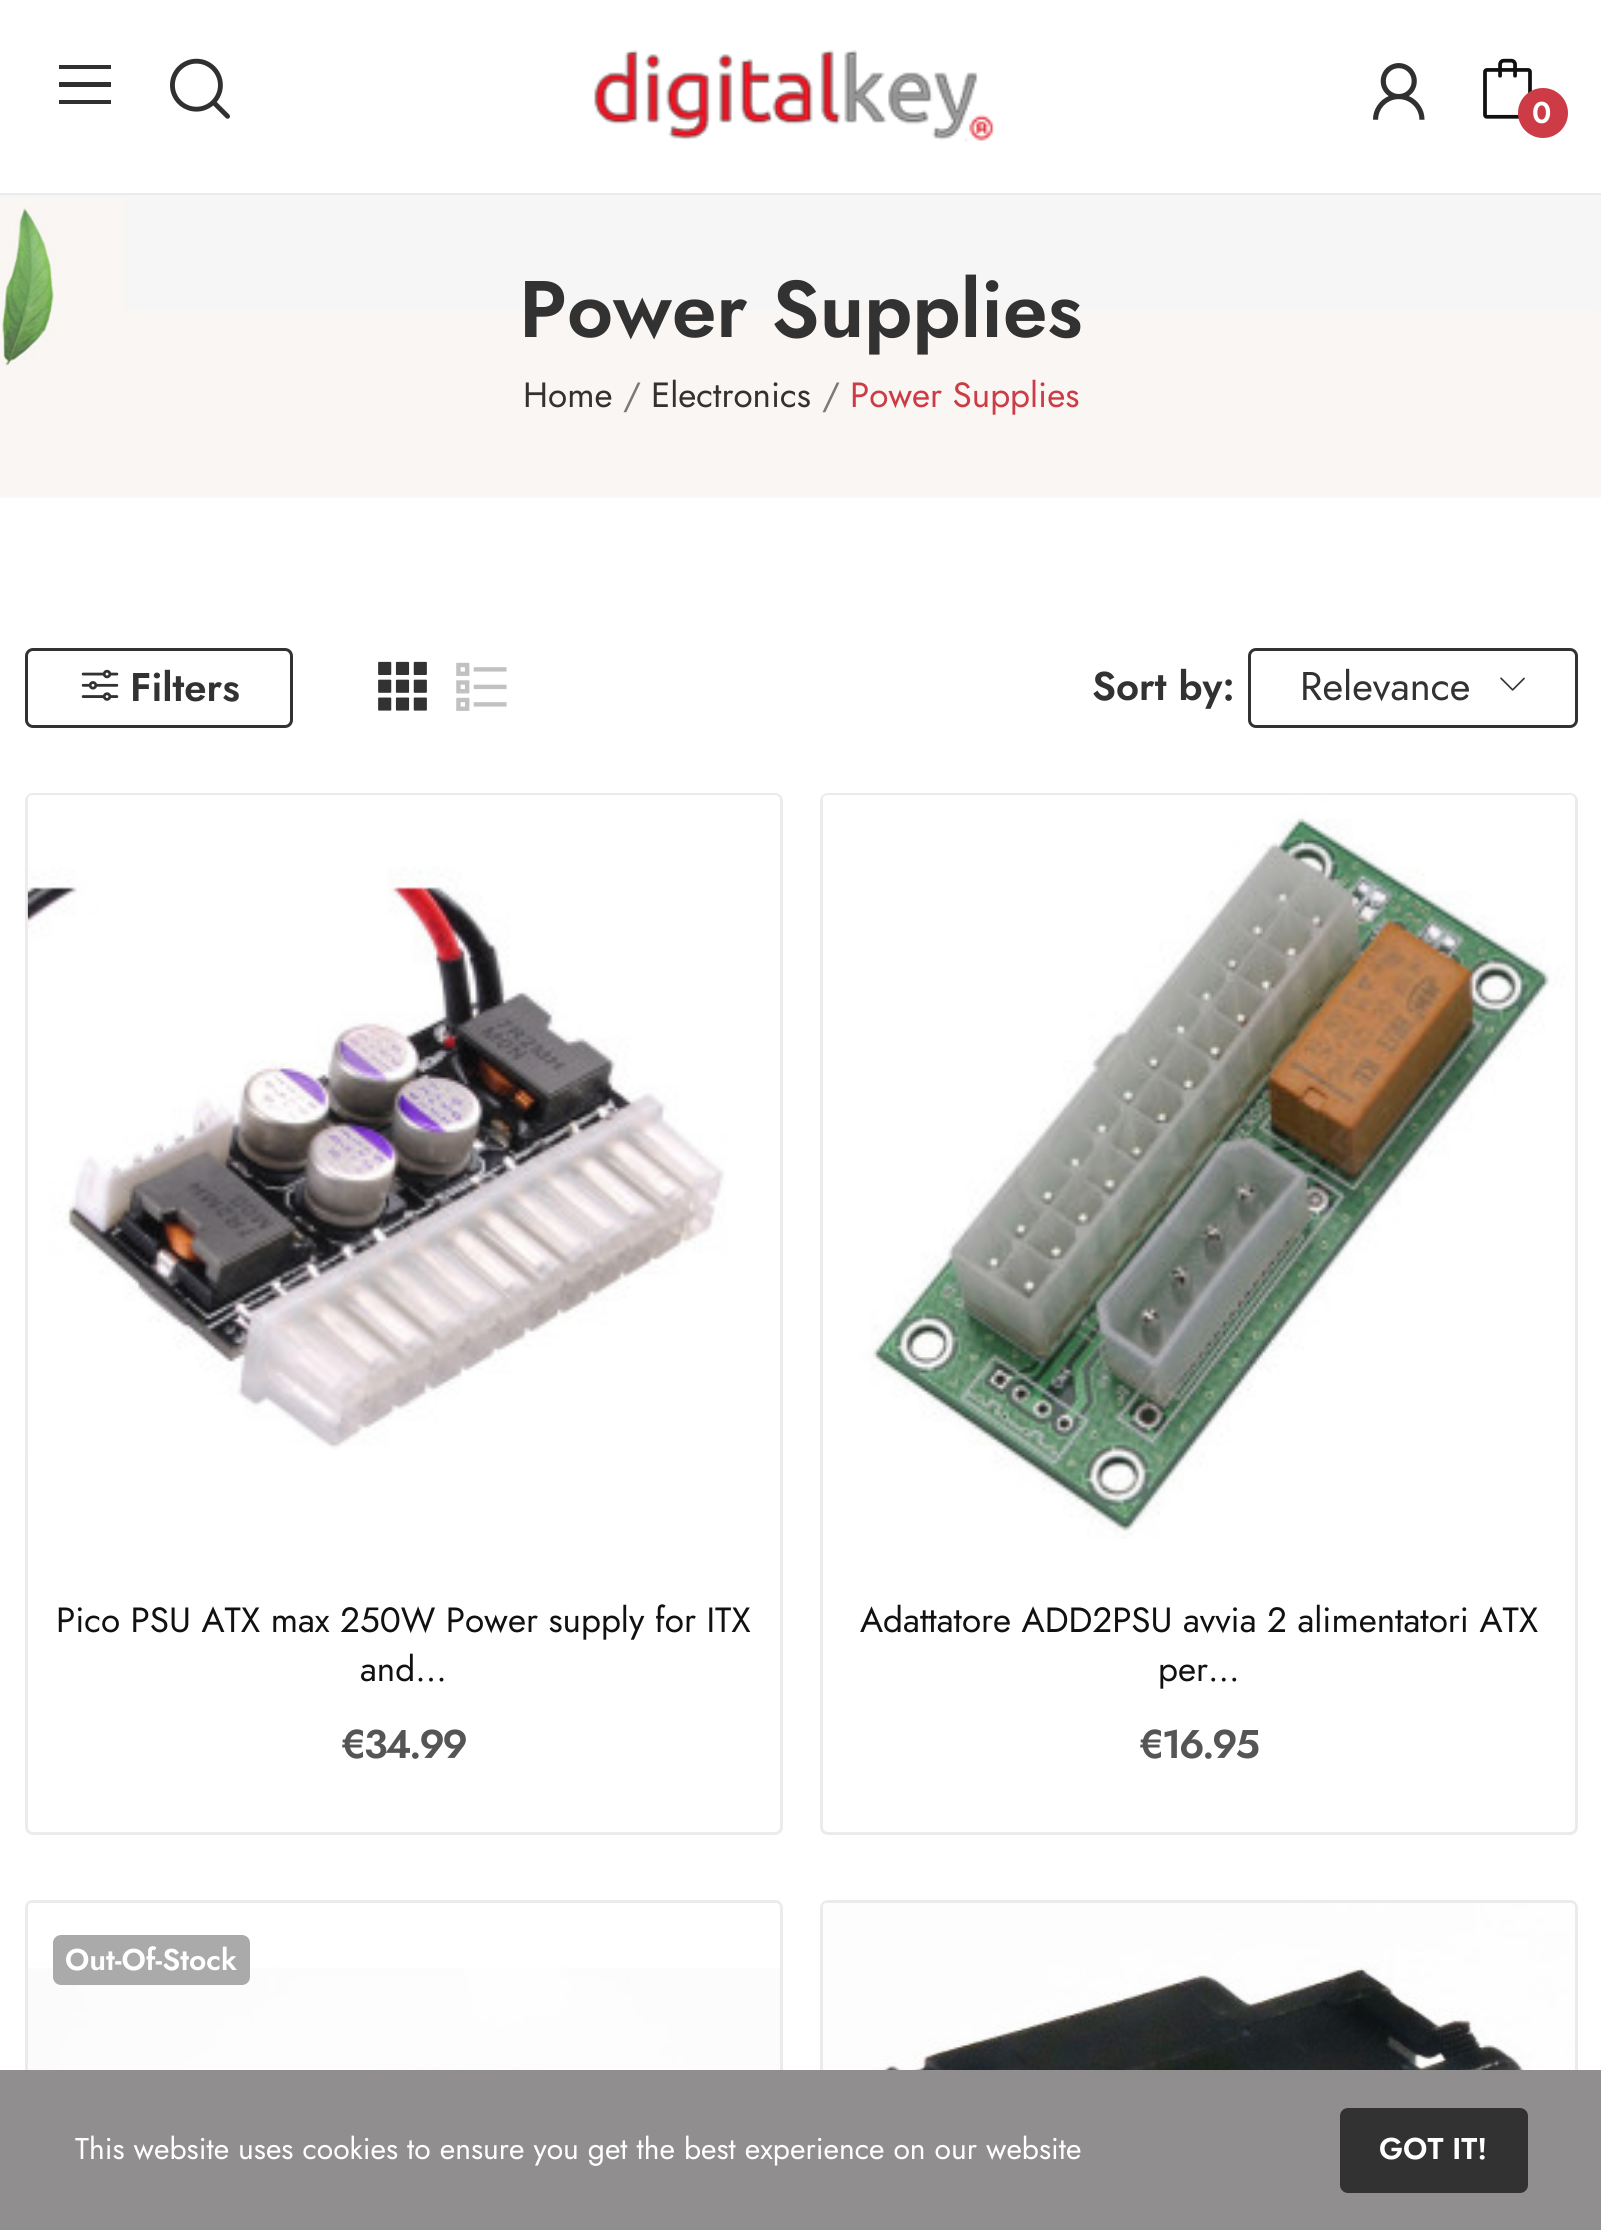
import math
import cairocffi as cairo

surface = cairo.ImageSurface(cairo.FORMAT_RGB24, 1601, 2230)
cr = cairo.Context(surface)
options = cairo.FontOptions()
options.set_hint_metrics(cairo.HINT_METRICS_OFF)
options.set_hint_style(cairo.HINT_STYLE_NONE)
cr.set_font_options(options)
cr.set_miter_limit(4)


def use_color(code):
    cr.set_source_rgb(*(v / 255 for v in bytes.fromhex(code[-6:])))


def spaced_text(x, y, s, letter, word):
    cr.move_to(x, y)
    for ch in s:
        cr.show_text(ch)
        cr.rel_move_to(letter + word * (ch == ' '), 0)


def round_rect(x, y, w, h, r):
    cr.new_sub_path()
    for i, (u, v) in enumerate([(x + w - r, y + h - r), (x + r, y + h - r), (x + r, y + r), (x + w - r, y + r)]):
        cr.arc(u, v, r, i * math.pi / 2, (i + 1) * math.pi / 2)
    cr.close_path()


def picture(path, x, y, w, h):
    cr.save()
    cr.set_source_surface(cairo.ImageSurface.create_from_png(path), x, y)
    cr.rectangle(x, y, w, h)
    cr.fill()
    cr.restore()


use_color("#ffffff")
cr.paint()
use_color("#ebebeb")
cr.rectangle(0, 193, 1601, 2)
cr.fill()
use_color("#313030")
cr.new_path()
cr.move_to(59, 65)
cr.line_to(59, 69)
cr.line_to(111, 69)
cr.line_to(111, 65)
cr.close_path()
cr.move_to(59, 82)
cr.line_to(59, 87)
cr.line_to(111, 87)
cr.line_to(111, 82)
cr.close_path()
cr.move_to(59, 100)
cr.line_to(59, 104)
cr.line_to(111, 104)
cr.line_to(111, 100)
cr.close_path()
cr.fill()
picture("img1.png", 170, 58, 60, 61)
picture("img2.png", 594, 50, 400, 92)
picture("img3.png", 1373, 63, 52, 57)
picture("img4.png", 1483, 58, 49, 61)
use_color("#cc3b46")
cr.arc(1543, 113, 25, 0, 2 * math.pi)
cr.fill()
cr.select_font_face("Jost SemiBold")
cr.set_font_size(30)
use_color("#ffffff")
cr.move_to(1532, 123)
cr.show_text("0")
picture("img5.png", 0, 195, 1601, 303)
cr.set_font_size(80)
use_color("#323232")
cr.move_to(519, 337)
cr.show_text("Power Supplies")
cr.select_font_face("Jost")
cr.set_font_size(35)
cr.move_to(523, 407)
cr.show_text("Home")
use_color("#7a7a7a")
cr.move_to(623, 407)
cr.show_text("/")
use_color("#323232")
cr.move_to(651, 407)
cr.show_text("Electronics")
use_color("#7a7a7a")
cr.move_to(822, 407)
cr.show_text("/")
use_color("#cc3b46")
cr.move_to(850, 407)
cr.show_text("Power Supplies")
round_rect(26.5, 649.5, 265, 77, 6.5)
use_color("#323232")
cr.set_line_width(3)
cr.stroke()
picture("img6.png", 81, 669, 38, 32)
cr.select_font_face("Jost SemiBold")
cr.set_font_size(40)
cr.move_to(130, 701)
cr.show_text("Filters")
picture("img7.png", 378, 661, 49, 50)
picture("img8.png", 456, 662, 51, 49)
cr.move_to(1092, 700)
cr.show_text("Sort by:")
round_rect(1249.5, 649.5, 327, 77, 6.5)
cr.stroke()
cr.select_font_face("Jost")
cr.move_to(1300, 700)
cr.show_text("Relevance")
picture("img9.png", 1500, 677, 25, 14)
round_rect(26.5, 794.5, 755, 1039, 6.5)
use_color("#ebebeb")
cr.stroke()
picture("img10.png", 27, 795, 753, 655)
cr.set_font_size(35)
use_color("#121111")
cr.move_to(56, 1632)
cr.show_text("Pico PSU ATX max 250W Power supply for ITX")
cr.move_to(360, 1681)
cr.show_text("and...")
cr.select_font_face("Jost SemiBold")
cr.set_font_size(40)
use_color("#555555")
spaced_text(341, 1758, "€34.99", -2.5, 0)
round_rect(821.5, 794.5, 755, 1039, 6.5)
use_color("#ebebeb")
cr.stroke()
picture("img11.png", 823, 795, 752, 744)
cr.select_font_face("Jost")
cr.set_font_size(35)
use_color("#121111")
cr.move_to(860, 1632)
cr.show_text("Adattatore ADD2PSU avvia 2 alimentatori ATX")
cr.move_to(1158, 1681)
cr.show_text("per...")
cr.select_font_face("Jost SemiBold")
cr.set_font_size(40)
use_color("#555555")
spaced_text(1139, 1758, "€16.95", -2.5, 0)
round_rect(26.5, 1901.5, 755, 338, 6.5)
use_color("#ebebeb")
cr.stroke()
picture("img12.png", 28, 1903, 752, 167)
use_color("#aaaaaa")
round_rect(53, 1935, 197, 50, 8)
cr.fill()
cr.set_font_size(30)
use_color("#ffffff")
cr.move_to(65, 1970)
cr.show_text("Out-Of-Stock")
round_rect(821.5, 1901.5, 755, 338, 6.5)
use_color("#ebebeb")
cr.stroke()
picture("img13.png", 823, 1903, 752, 167)
use_color("#908e8f")
cr.rectangle(0, 2070, 1601, 160)
cr.fill()
cr.select_font_face("Jost")
use_color("#ffffff")
cr.move_to(75, 2159)
cr.show_text("This website uses cookies to ensure you get the best experience on our website")
use_color("#323232")
round_rect(1341.5, 2109.5, 185, 82, 6.5)
cr.fill_preserve()
cr.stroke()
cr.select_font_face("Jost SemiBold")
use_color("#ffffff")
cr.move_to(1379, 2159)
cr.show_text("GOT IT!")
surface.write_to_png("result.png")
